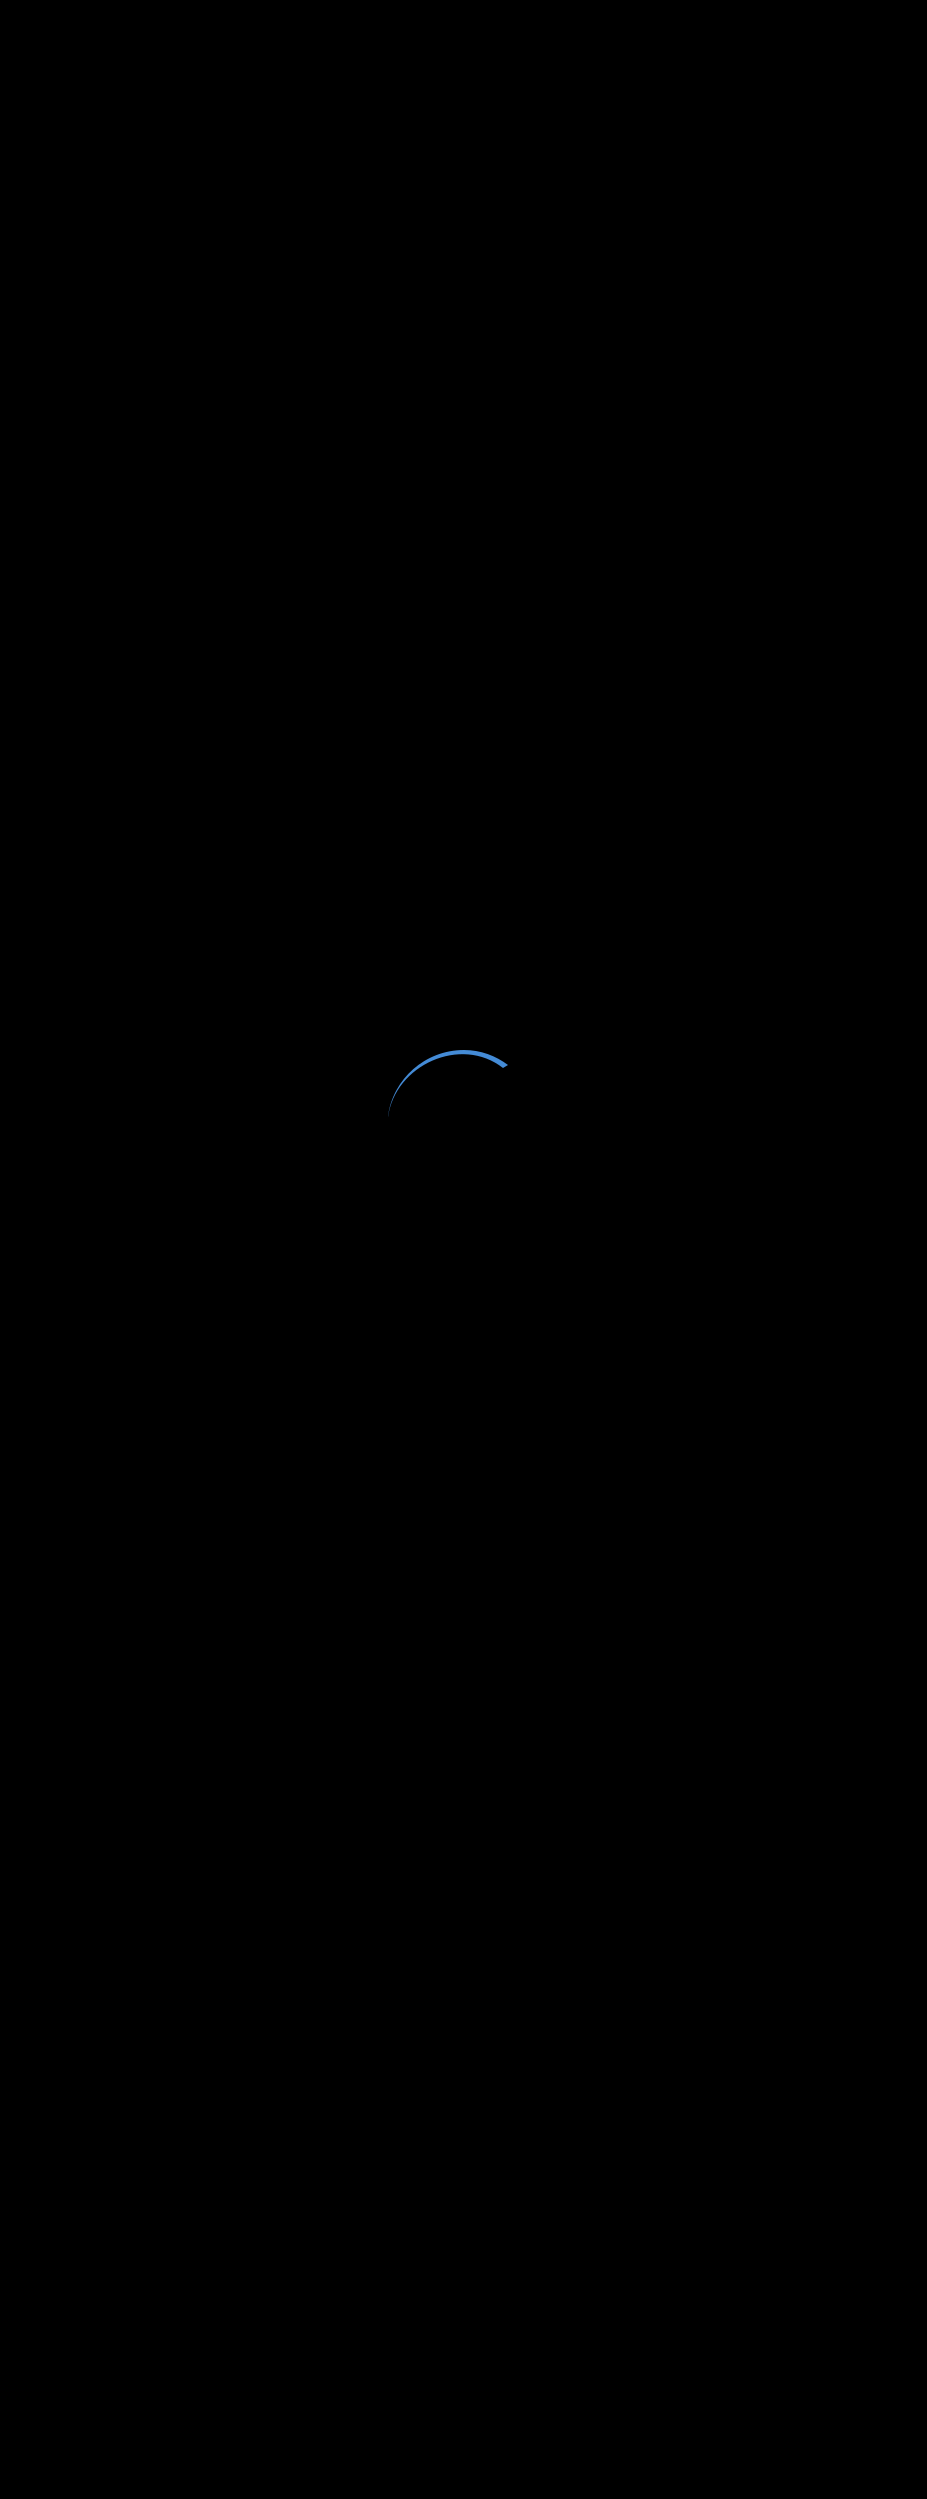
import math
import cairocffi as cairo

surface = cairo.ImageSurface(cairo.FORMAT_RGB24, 927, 2499)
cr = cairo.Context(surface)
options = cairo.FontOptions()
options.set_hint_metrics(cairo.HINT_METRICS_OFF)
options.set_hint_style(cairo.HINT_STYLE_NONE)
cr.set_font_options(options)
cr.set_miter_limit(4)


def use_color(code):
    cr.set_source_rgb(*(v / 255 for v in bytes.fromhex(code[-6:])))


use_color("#000000")
cr.paint()
use_color("#448bd6")
cr.new_path()
cr.move_to(464, 1050)
cr.curve_to(425, 1050, 393, 1079, 388, 1116)
cr.line_to(388, 1117)
cr.curve_to(395, 1065, 461, 1035, 503, 1068)
cr.line_to(508, 1065)
cr.curve_to(496, 1056, 481, 1050, 464, 1050)
cr.close_path()
cr.fill()
surface.write_to_png("result.png")
